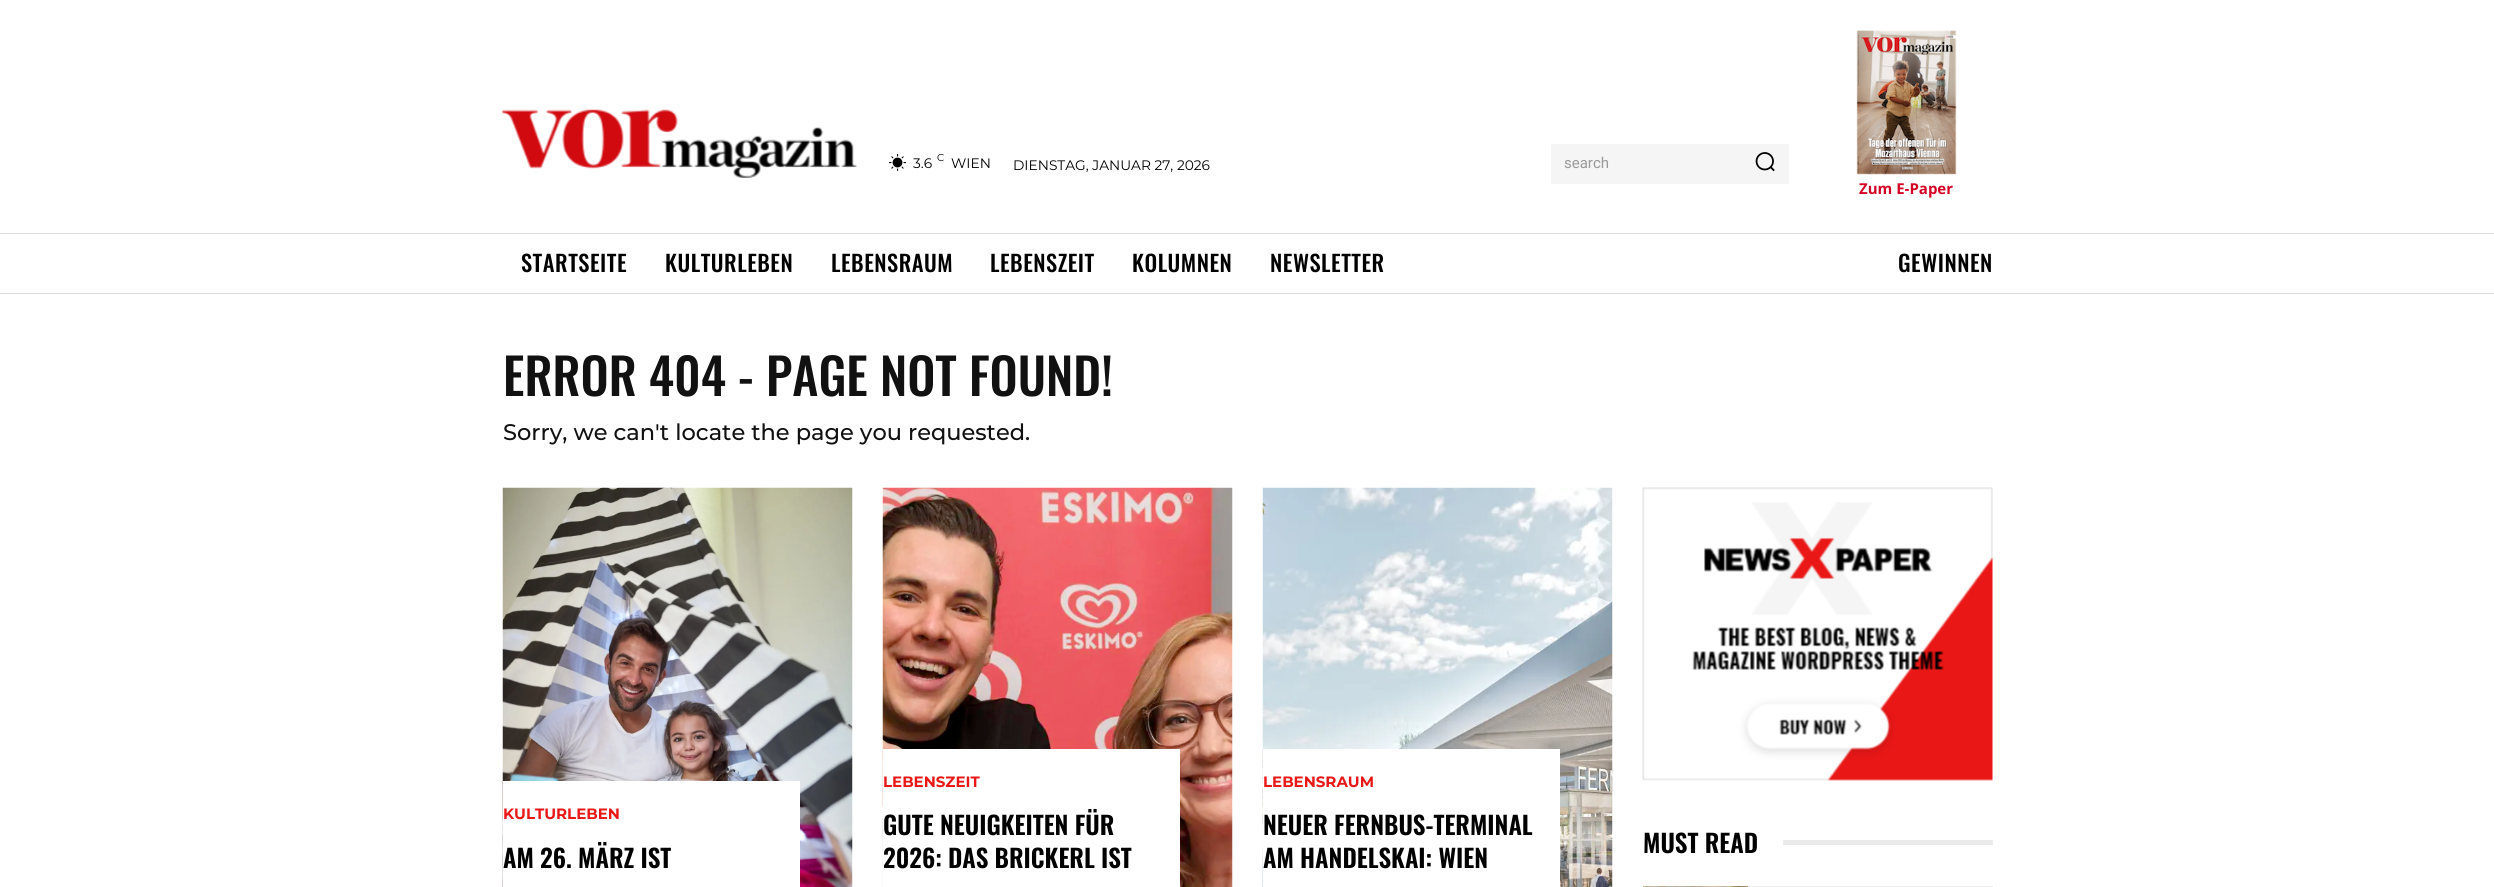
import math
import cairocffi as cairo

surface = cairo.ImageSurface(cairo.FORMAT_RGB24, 2494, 887)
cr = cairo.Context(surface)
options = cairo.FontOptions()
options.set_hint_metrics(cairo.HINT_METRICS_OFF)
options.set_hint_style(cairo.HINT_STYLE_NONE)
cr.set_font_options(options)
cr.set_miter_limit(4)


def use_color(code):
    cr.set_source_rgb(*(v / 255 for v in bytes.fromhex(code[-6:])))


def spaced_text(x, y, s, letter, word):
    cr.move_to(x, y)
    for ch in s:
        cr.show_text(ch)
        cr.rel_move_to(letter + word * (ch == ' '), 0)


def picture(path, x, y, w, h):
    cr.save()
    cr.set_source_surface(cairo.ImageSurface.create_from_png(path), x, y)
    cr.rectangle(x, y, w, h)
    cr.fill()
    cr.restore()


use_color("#ffffff")
cr.paint()
picture("img1.png", 502, 109, 355, 69)
picture("img2.png", 889, 154, 17, 17)
cr.select_font_face("Montserrat")
cr.set_font_size(13.75)
use_color("#000000")
cr.move_to(913, 168)
cr.show_text("3.6")
cr.set_font_size(10)
cr.move_to(937, 161)
cr.show_text("C")
cr.set_font_size(13.75)
cr.move_to(951, 168)
cr.show_text("WIEN")
cr.move_to(1013, 170)
cr.show_text("DIENSTAG, JANUAR 27, 2026")
use_color("#f5f5f5")
cr.rectangle(1551, 144, 238, 40)
cr.fill()
cr.select_font_face("Roboto")
cr.set_font_size(15)
use_color("#999999")
cr.move_to(1564, 168)
cr.show_text("search")
picture("img3.png", 1755, 152, 20, 20)
picture("img4.png", 1856, 30, 101, 145)
cr.select_font_face("Open Sans", cairo.FONT_SLANT_NORMAL, cairo.FONT_WEIGHT_BOLD)
use_color("#d30225")
cr.move_to(1859, 194)
cr.show_text("Zum E-Paper")
use_color("#dddddd")
cr.rectangle(0, 233, 2494, 1)
cr.fill()
cr.rectangle(0, 293, 2494, 1)
cr.fill()
cr.select_font_face("Oswald Medium")
cr.set_font_size(22.5)
use_color("#000000")
spaced_text(521, 272, "STARTSEITE", 0.5, 0)
spaced_text(665, 272, "KULTURLEBEN", 0.5, 0)
spaced_text(831, 272, "LEBENSRAUM", 0.5, 0)
spaced_text(990, 272, "LEBENSZEIT", 0.5, 0)
spaced_text(1132, 272, "KOLUMNEN", 0.5, 0)
spaced_text(1270, 272, "NEWSLETTER", 0.5, 0)
spaced_text(1898, 272, "GEWINNEN", 0.5, 0)
cr.set_font_size(50)
use_color("#111111")
cr.move_to(503, 396)
cr.show_text("ERROR 404 - PAGE NOT FOUND!")
cr.select_font_face("Montserrat Medium")
cr.set_font_size(22.5)
cr.move_to(503, 440)
cr.show_text("Sorry, we can't locate the page you requested.")
picture("img5.png", 502, 487, 351, 400)
use_color("#ffffff")
cr.rectangle(503, 781, 297, 106)
cr.fill()
cr.select_font_face("Montserrat", cairo.FONT_SLANT_NORMAL, cairo.FONT_WEIGHT_BOLD)
cr.set_font_size(15)
use_color("#ea1717")
cr.move_to(503, 819)
cr.show_text("KULTURLEBEN")
cr.select_font_face("Oswald SemiBold")
cr.set_font_size(25)
use_color("#000000")
cr.move_to(503, 868)
cr.show_text("AM 26. MÄRZ IST")
picture("img6.png", 882, 487, 351, 400)
use_color("#ffffff")
cr.rectangle(883, 749, 297, 138)
cr.fill()
cr.select_font_face("Montserrat", cairo.FONT_SLANT_NORMAL, cairo.FONT_WEIGHT_BOLD)
cr.set_font_size(15)
use_color("#ea1717")
cr.move_to(883, 787)
cr.show_text("LEBENSZEIT")
cr.select_font_face("Oswald SemiBold")
cr.set_font_size(25)
use_color("#000000")
cr.move_to(883, 835)
cr.show_text("GUTE NEUIGKEITEN FÜR")
cr.move_to(883, 868)
cr.show_text("2026: DAS BRICKERL IST")
picture("img7.png", 1262, 487, 351, 400)
use_color("#ffffff")
cr.rectangle(1263, 749, 297, 138)
cr.fill()
cr.select_font_face("Montserrat", cairo.FONT_SLANT_NORMAL, cairo.FONT_WEIGHT_BOLD)
cr.set_font_size(15)
use_color("#ea1717")
cr.move_to(1263, 787)
cr.show_text("LEBENSRAUM")
cr.select_font_face("Oswald SemiBold")
cr.set_font_size(25)
use_color("#000000")
cr.move_to(1263, 835)
cr.show_text("NEUER FERNBUS-TERMINAL")
cr.move_to(1263, 868)
cr.show_text("AM HANDELSKAI: WIEN")
picture("img8.png", 1642, 487, 351, 294)
cr.move_to(1643, 853)
cr.show_text("MUST READ")
use_color("#eaeaea")
cr.rectangle(1783, 840, 210, 5)
cr.fill()
picture("img9.png", 1643, 886, 105, 1)
cr.rectangle(1748, 886, 245, 1)
cr.fill()
surface.write_to_png("result.png")
